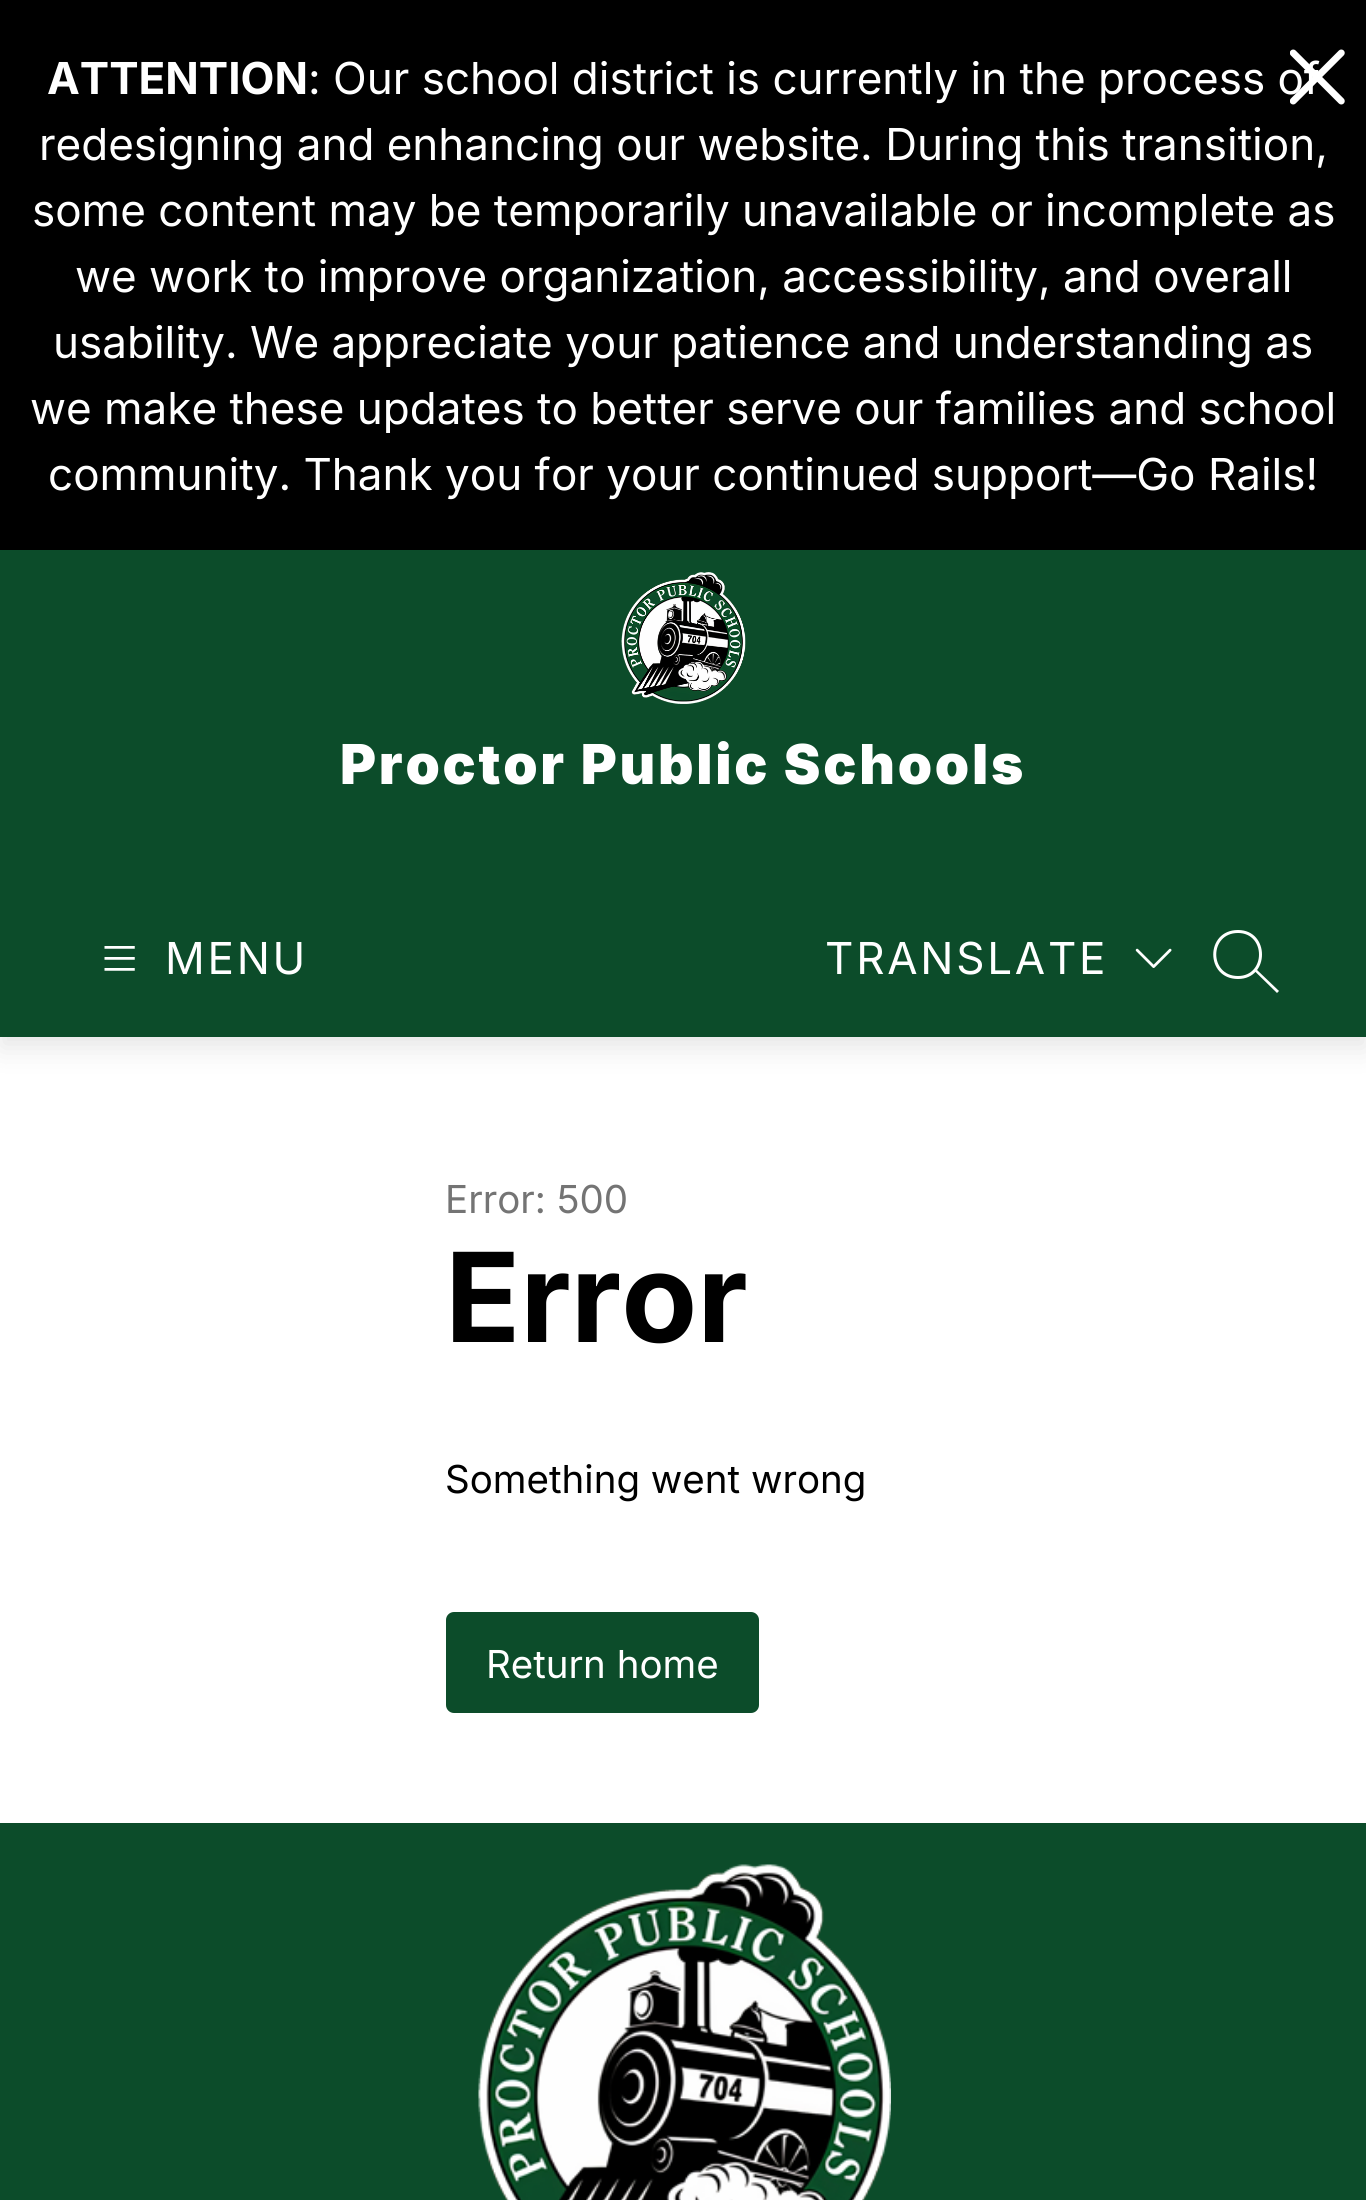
import math
import cairocffi as cairo

surface = cairo.ImageSurface(cairo.FORMAT_RGB24, 1366, 2200)
cr = cairo.Context(surface)
options = cairo.FontOptions()
options.set_hint_metrics(cairo.HINT_METRICS_OFF)
options.set_hint_style(cairo.HINT_STYLE_NONE)
cr.set_font_options(options)
cr.set_miter_limit(4)


def use_color(code):
    cr.set_source_rgb(*(v / 255 for v in bytes.fromhex(code[-6:])))


def spaced_text(x, y, s, letter, word):
    cr.move_to(x, y)
    for ch in s:
        cr.show_text(ch)
        cr.rel_move_to(letter + word * (ch == ' '), 0)


def round_rect(x, y, w, h, r):
    cr.new_sub_path()
    for i, (u, v) in enumerate([(x + w - r, y + h - r), (x + r, y + h - r), (x + r, y + r), (x + w - r, y + r)]):
        cr.arc(u, v, r, i * math.pi / 2, (i + 1) * math.pi / 2)
    cr.close_path()


def shadow(x, y, w, h, r, blur, alpha):
    cr.push_group_with_content(cairo.CONTENT_ALPHA)
    cr.set_operator(cairo.OPERATOR_SOURCE)
    for i in range(15, -16, -2):
        e = blur * i / 6
        if min(w, h) + 2 * e > 0:
            cr.set_source_rgba(0, 0, 0, alpha * math.erfc((i - 1) / 8.5) / 2)
            round_rect(x - e, y - e, w + 2 * e, h + 2 * e, max(0, min(r + e + blur * .6, min(w, h) / 2 + e)))
            cr.fill()
    cr.mask(cr.pop_group())


def picture(path, x, y, w, h):
    cr.save()
    cr.set_source_surface(cairo.ImageSurface.create_from_png(path), x, y)
    cr.rectangle(x, y, w, h)
    cr.fill()
    cr.restore()


use_color("#ffffff")
cr.paint()
use_color("#000000")
cr.rectangle(0, 0, 1366, 550)
cr.fill()
cr.select_font_face("Inter")
cr.set_font_size(44)
use_color("#ffffff")
cr.move_to(308, 94)
cr.show_text(": Our school district is currently in the process of")
picture("img1.png", 1290, 49, 55, 56)
cr.select_font_face("Inter", cairo.FONT_SLANT_NORMAL, cairo.FONT_WEIGHT_BOLD)
cr.move_to(47, 94)
cr.show_text("ATTENTION")
cr.select_font_face("Inter")
cr.move_to(39, 160)
cr.show_text("redesigning and enhancing our website. During this transition,")
cr.move_to(32, 226)
cr.show_text("some content may be temporarily unavailable or incomplete as")
cr.move_to(75, 292)
cr.show_text("we work to improve organization, accessibility, and overall")
cr.move_to(53, 358)
cr.show_text("usability. We appreciate your patience and understanding as")
cr.move_to(30, 424)
cr.show_text("we make these updates to better serve our families and school")
cr.move_to(48, 490)
cr.show_text("community. Thank you for your continued support—Go Rails!")
use_color("#000000")
shadow(0, 561, 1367, 487, 0, 14, 0.1)
use_color("#0c4c2a")
cr.rectangle(0, 550, 1366, 487)
cr.fill()
picture("img2.png", 621, 572, 125, 132)
cr.select_font_face("Inter Black")
cr.set_font_size(55)
use_color("#ffffff")
spaced_text(340, 784, "Proctor Public Schools", 2.75, 0)
picture("img3.png", 104, 946, 31, 25)
cr.select_font_face("Inter")
cr.set_font_size(44)
spaced_text(165, 974, "MENU", 2.75, 0)
spaced_text(825, 974, "TRANSLATE", 2.75, 0)
picture("img4.png", 1135, 948, 37, 20)
cr.set_fill_rule(cairo.FILL_RULE_EVEN_ODD)
cr.new_path()
cr.move_to(1238, 976)
cr.curve_to(1266, 976, 1266, 933, 1238, 933)
cr.curve_to(1209, 933, 1209, 976, 1238, 976)
cr.close_path()
cr.move_to(1238, 979)
cr.curve_to(1270, 979, 1270, 930, 1238, 930)
cr.curve_to(1205, 930, 1205, 979, 1238, 979)
cr.close_path()
cr.fill()
cr.new_path()
cr.move_to(1277, 993)
cr.line_to(1254.5, 971)
cr.line_to(1256, 969)
cr.line_to(1279, 991)
cr.close_path()
cr.fill()
cr.set_font_size(38.5)
use_color("#747474")
cr.move_to(445, 1213)
cr.show_text("Error: 500")
cr.select_font_face("Inter", cairo.FONT_SLANT_NORMAL, cairo.FONT_WEIGHT_BOLD)
cr.set_font_size(124)
use_color("#000000")
cr.move_to(445, 1342)
cr.show_text("Error")
cr.select_font_face("Inter")
cr.set_font_size(38.5)
cr.move_to(445, 1493)
cr.show_text("Something went wrong")
use_color("#0c4c2a")
round_rect(446, 1612, 313, 101, 8)
cr.fill()
use_color("#ffffff")
cr.move_to(486, 1678)
cr.show_text("Return home")
use_color("#0c4c2a")
cr.rectangle(0, 1823, 1366, 377)
cr.fill()
picture("img5.png", 478, 1864, 413, 336)
surface.write_to_png("result.png")
